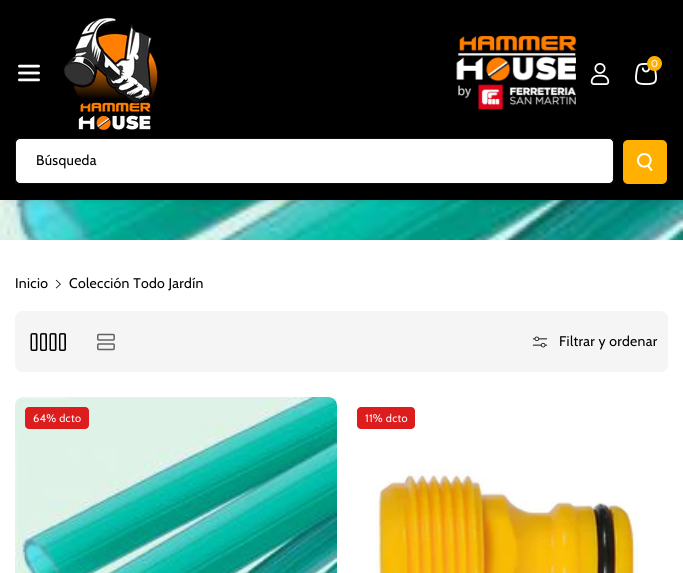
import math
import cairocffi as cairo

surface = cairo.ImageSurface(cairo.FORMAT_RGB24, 683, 573)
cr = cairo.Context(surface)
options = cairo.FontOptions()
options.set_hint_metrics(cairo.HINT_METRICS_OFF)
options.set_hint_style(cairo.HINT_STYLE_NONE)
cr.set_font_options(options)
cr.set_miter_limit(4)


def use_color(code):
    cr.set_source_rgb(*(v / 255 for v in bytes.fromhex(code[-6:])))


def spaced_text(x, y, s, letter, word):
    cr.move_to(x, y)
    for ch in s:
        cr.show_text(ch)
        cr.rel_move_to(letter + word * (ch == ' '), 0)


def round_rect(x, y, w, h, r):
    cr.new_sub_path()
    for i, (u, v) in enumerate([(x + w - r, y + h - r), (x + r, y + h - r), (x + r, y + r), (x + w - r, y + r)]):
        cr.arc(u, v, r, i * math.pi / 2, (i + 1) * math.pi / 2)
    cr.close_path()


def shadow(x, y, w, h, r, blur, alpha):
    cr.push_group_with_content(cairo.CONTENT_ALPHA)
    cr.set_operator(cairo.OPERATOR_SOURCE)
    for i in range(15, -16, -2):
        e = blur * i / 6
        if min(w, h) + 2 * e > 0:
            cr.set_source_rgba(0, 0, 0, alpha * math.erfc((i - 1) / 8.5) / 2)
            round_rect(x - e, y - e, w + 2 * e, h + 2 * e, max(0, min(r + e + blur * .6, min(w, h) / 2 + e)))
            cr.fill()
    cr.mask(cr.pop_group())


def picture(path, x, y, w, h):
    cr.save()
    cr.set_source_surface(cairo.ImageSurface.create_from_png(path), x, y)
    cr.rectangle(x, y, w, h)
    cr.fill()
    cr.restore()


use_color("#ffffff")
cr.paint()
picture("img7.png", 0, 200, 683, 40)
use_color("#121212")
shadow(12, 18, 659, 176, 0, 6, 0.6)
use_color("#000000")
cr.rectangle(0, 0, 683, 200)
cr.fill()
picture("img1.png", 18, 64, 22, 18)
picture("img2.png", 63, 16, 96, 114)
picture("img3.png", 456, 36, 120, 74)
picture("img4.png", 590, 63, 20, 22)
picture("img5.png", 635, 63, 22, 22)
use_color("#ffb000")
cr.arc(654.5, 63.5, 7.5, 0, 2 * math.pi)
cr.fill()
cr.select_font_face("Cabin")
cr.set_font_size(10)
use_color("#ffffff")
spaced_text(651, 67, "0", 0.3, 0)
round_rect(16, 139, 597, 44, 4)
cr.fill()
cr.rectangle(15.5, 138.5, 598, 45)
cr.set_source_rgba(1, 1, 1, 0.05)
cr.set_line_width(1)
cr.stroke()
cr.set_font_size(14)
use_color("#000000")
spaced_text(36, 165, "Búsqueda", 0.3, 0)
use_color("#ffb000")
round_rect(623, 140, 44, 44, 5)
cr.fill()
picture("img6.png", 637, 153, 16, 18)
use_color("#000000")
spaced_text(15, 288, "Inicio", 0.3, 0)
picture("img8.png", 55, 279, 6, 10)
spaced_text(69, 288, "Colección Todo Jardín", 0.3, 0)
use_color("#f5f5f5")
round_rect(15, 311, 653, 61, 8)
cr.fill()
picture("img9.png", 30, 333, 36, 18)
picture("img10.png", 97, 333, 18, 18)
picture("img11.png", 532, 336, 16, 12)
use_color("#000000")
spaced_text(559, 346, "Filtrar y ordenar", 0.3, 0)
picture("img12.png", 15, 397, 322, 176)
use_color("#dd1d1d")
round_rect(25, 407, 64, 22, 4)
cr.fill()
cr.set_font_size(11)
use_color("#ffffff")
spaced_text(33, 422, "64% dcto", 0.3, 0)
use_color("#dd1d1d")
round_rect(357, 407, 58, 22, 4)
cr.fill()
use_color("#ffffff")
spaced_text(365, 422, "11% dcto", 0.3, 0)
picture("img13.png", 376, 468, 263, 105)
surface.write_to_png("result.png")
